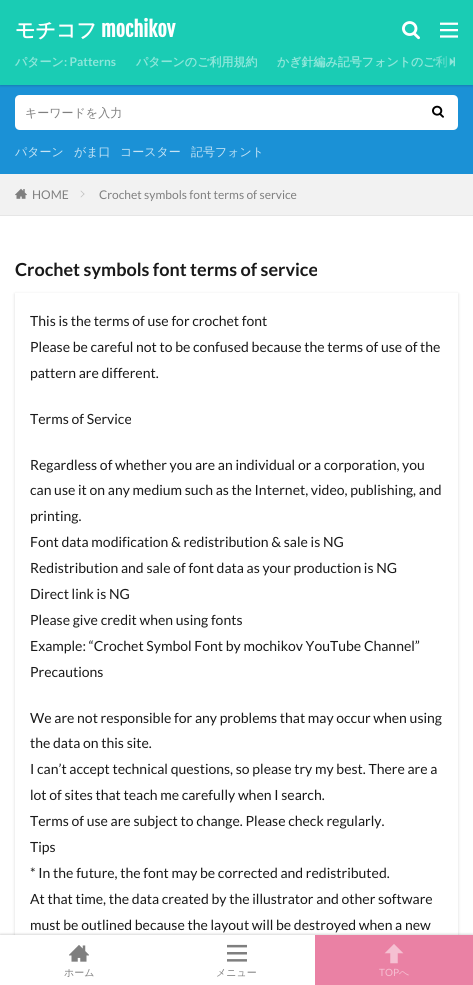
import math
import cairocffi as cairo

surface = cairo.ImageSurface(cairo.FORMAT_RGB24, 473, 985)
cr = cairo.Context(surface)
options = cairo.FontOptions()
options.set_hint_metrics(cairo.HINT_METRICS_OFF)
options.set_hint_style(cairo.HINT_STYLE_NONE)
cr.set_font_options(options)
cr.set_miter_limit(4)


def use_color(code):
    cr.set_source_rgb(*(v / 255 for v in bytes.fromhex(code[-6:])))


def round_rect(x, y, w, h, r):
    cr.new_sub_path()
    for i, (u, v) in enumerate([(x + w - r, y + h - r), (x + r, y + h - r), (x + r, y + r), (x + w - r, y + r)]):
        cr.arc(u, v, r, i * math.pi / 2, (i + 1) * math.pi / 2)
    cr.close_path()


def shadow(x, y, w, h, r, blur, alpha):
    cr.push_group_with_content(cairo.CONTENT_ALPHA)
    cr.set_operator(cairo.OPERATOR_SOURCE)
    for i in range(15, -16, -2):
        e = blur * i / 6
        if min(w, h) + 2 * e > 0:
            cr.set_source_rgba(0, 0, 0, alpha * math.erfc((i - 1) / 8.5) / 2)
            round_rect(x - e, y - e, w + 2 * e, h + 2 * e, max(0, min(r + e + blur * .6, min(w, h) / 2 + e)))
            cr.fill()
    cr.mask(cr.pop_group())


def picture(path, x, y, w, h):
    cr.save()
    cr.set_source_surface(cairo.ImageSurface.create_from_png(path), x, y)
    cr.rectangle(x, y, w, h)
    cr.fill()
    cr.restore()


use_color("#ffffff")
cr.paint()
use_color("#1b91d6")
cr.rectangle(0, 85, 473, 89)
cr.fill()
use_color("#000000")
shadow(0, 1, 473, 85, 0, 1, 0.15)
use_color("#1accb4")
cr.rectangle(0, 0, 473, 85)
cr.fill()
cr.select_font_face("WenQuanYi Zen Hei", cairo.FONT_SLANT_NORMAL, cairo.FONT_WEIGHT_BOLD)
cr.set_font_size(20)
use_color("#ffffff")
cr.move_to(15, 37)
cr.show_text("モチコフ")
cr.select_font_face("Fjalla One", cairo.FONT_SLANT_NORMAL, cairo.FONT_WEIGHT_BOLD)
cr.move_to(101, 37)
cr.show_text("mochikov")
picture("img1.png", 402, 21, 18, 19)
picture("img2.png", 440, 22, 18, 16)
cr.select_font_face("WenQuanYi Zen Hei", cairo.FONT_SLANT_NORMAL, cairo.FONT_WEIGHT_BOLD)
cr.set_font_size(12)
use_color("#8de6da")
cr.move_to(15, 66)
cr.show_text("パターン")
cr.select_font_face("Lato", cairo.FONT_SLANT_NORMAL, cairo.FONT_WEIGHT_BOLD)
cr.move_to(64, 66)
cr.show_text(": Patterns")
cr.select_font_face("WenQuanYi Zen Hei", cairo.FONT_SLANT_NORMAL, cairo.FONT_WEIGHT_BOLD)
cr.move_to(136, 66)
cr.show_text("パターンのご利用規約")
cr.move_to(277, 66)
cr.show_text("かぎ針編み記号フォントのご利")
gradient = cairo.LinearGradient(433, 50, 458, 50)
gradient.add_color_stop_rgba(0, 0.102, 0.8, 0.706, 0)
gradient.add_color_stop_rgba(1, 0.102, 0.8, 0.706, 1)
cr.set_source(gradient)
cr.rectangle(434, 56, 13, 12)
cr.fill()
picture("img3.png", 449, 57, 6, 10)
use_color("#ffffff")
cr.new_path()
cr.move_to(20, 95)
cr.line_to(418, 95)
cr.line_to(418, 130)
cr.line_to(20, 130)
cr.curve_to(17, 130, 15, 128, 15, 125)
cr.line_to(15, 100)
cr.curve_to(15, 97, 17, 95, 20, 95)
cr.close_path()
cr.fill()
cr.select_font_face("WenQuanYi Zen Hei Medium")
use_color("#7f7f7f")
cr.move_to(25, 117)
cr.show_text("キーワードを入力")
use_color("#ffffff")
cr.new_path()
cr.move_to(418, 95)
cr.line_to(453, 95)
cr.curve_to(456, 95, 458, 97, 458, 100)
cr.line_to(458, 125)
cr.curve_to(458, 128, 456, 130, 453, 130)
cr.line_to(418, 130)
cr.close_path()
cr.fill()
picture("img4.png", 432, 105, 12, 13)
use_color("#c6e4f5")
cr.move_to(15, 156)
cr.show_text("パターン")
cr.move_to(74, 156)
cr.show_text("がま口")
cr.move_to(120, 156)
cr.show_text("コースター")
cr.move_to(191, 156)
cr.show_text("記号フォント")
use_color("#f2f2f2")
cr.rectangle(0, 174, 473, 41)
cr.fill()
use_color("#e6e6e6")
cr.rectangle(0, 215, 473, 1)
cr.fill()
picture("img5.png", 15, 188, 12, 11)
cr.select_font_face("Lato")
use_color("#7f7f7f")
cr.move_to(32, 199)
cr.show_text("HOME")
use_color("#bfbfbf")
cr.new_path()
cr.move_to(81, 190.5)
cr.line_to(84.5, 194)
cr.line_to(84, 194.5)
cr.line_to(80.5, 191)
cr.close_path()
cr.fill()
cr.new_path()
cr.move_to(84, 193.5)
cr.line_to(84.5, 194)
cr.line_to(81, 197.5)
cr.line_to(80.5, 197)
cr.close_path()
cr.fill()
use_color("#7f7f7f")
cr.move_to(99, 199)
cr.show_text("Crochet symbols font terms of service")
cr.select_font_face("Lato", cairo.FONT_SLANT_NORMAL, cairo.FONT_WEIGHT_BOLD)
cr.set_font_size(18)
use_color("#191919")
cr.move_to(15, 276)
cr.show_text("Crochet symbols font terms of service")
cr.save()
cr.set_fill_rule(cairo.FILL_RULE_EVEN_ODD)
cr.new_path()
cr.move_to(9, 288)
cr.line_to(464, 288)
cr.line_to(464, 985)
cr.line_to(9, 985)
cr.close_path()
cr.move_to(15, 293)
cr.line_to(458, 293)
cr.line_to(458, 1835)
cr.line_to(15, 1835)
cr.close_path()
cr.clip()
use_color("#000000")
shadow(15, 294, 443, 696, 0, 1.5, 0.15)
cr.restore()
cr.select_font_face("Lato")
cr.set_font_size(14)
cr.move_to(30, 326)
cr.show_text("This is the terms of use for crochet font")
cr.move_to(30, 352)
cr.show_text("Please be careful not to be confused because the terms of use of the")
cr.move_to(30, 378)
cr.show_text("pattern are different.")
cr.move_to(30, 424)
cr.show_text("Terms of Service")
cr.move_to(30, 470)
cr.show_text("Regardless of whether you are an individual or a corporation, you")
cr.move_to(30, 495)
cr.show_text("can use it on any medium such as the Internet, video, publishing, and")
cr.move_to(30, 521)
cr.show_text("printing.")
cr.move_to(30, 547)
cr.show_text("Font data modification & redistribution & sale is NG")
cr.move_to(30, 573)
cr.show_text("Redistribution and sale of font data as your production is NG")
cr.move_to(30, 599)
cr.show_text("Direct link is NG")
cr.move_to(30, 625)
cr.show_text("Please give credit when using fonts")
cr.move_to(30, 651)
cr.show_text("Example: “Crochet Symbol Font by mochikov YouTube Channel”")
cr.move_to(30, 677)
cr.show_text("Precautions")
cr.move_to(30, 723)
cr.show_text("We are not responsible for any problems that may occur when using")
cr.move_to(30, 748)
cr.show_text("the data on this site.")
cr.move_to(30, 774)
cr.show_text("I can’t accept technical questions, so please try my best. There are a")
cr.move_to(30, 800)
cr.show_text("lot of sites that teach me carefully when I search.")
cr.move_to(30, 826)
cr.show_text("Terms of use are subject to change. Please check regularly.")
cr.move_to(30, 852)
cr.show_text("Tips")
cr.move_to(30, 878)
cr.show_text("* In the future, the font may be corrected and redistributed.")
cr.move_to(30, 904)
cr.show_text("At that time, the data created by the illustrator and other software")
cr.move_to(30, 930)
cr.show_text("must be outlined because the layout will be destroyed when a new")
use_color("#000000")
shadow(0, 934, 473, 50, 0, 1, 0.15)
use_color("#ffffff")
cr.rectangle(0, 935, 315, 50)
cr.fill()
picture("img6.png", 69, 945, 20, 17)
cr.select_font_face("WenQuanYi Zen Hei Medium")
cr.set_font_size(10)
use_color("#7f7f7f")
cr.move_to(64, 976)
cr.show_text("ホーム")
picture("img7.png", 227, 944, 20, 18)
cr.move_to(216, 976)
cr.show_text("メニュー")
use_color("#ea81a4")
cr.rectangle(315, 935, 158, 50)
cr.fill()
picture("img8.png", 384, 944, 20, 20)
cr.select_font_face("Lato")
use_color("#f5c0d2")
cr.move_to(379, 976)
cr.show_text("TOP")
cr.select_font_face("WenQuanYi Zen Hei Medium")
cr.move_to(399, 976)
cr.show_text("へ")
surface.write_to_png("result.png")
